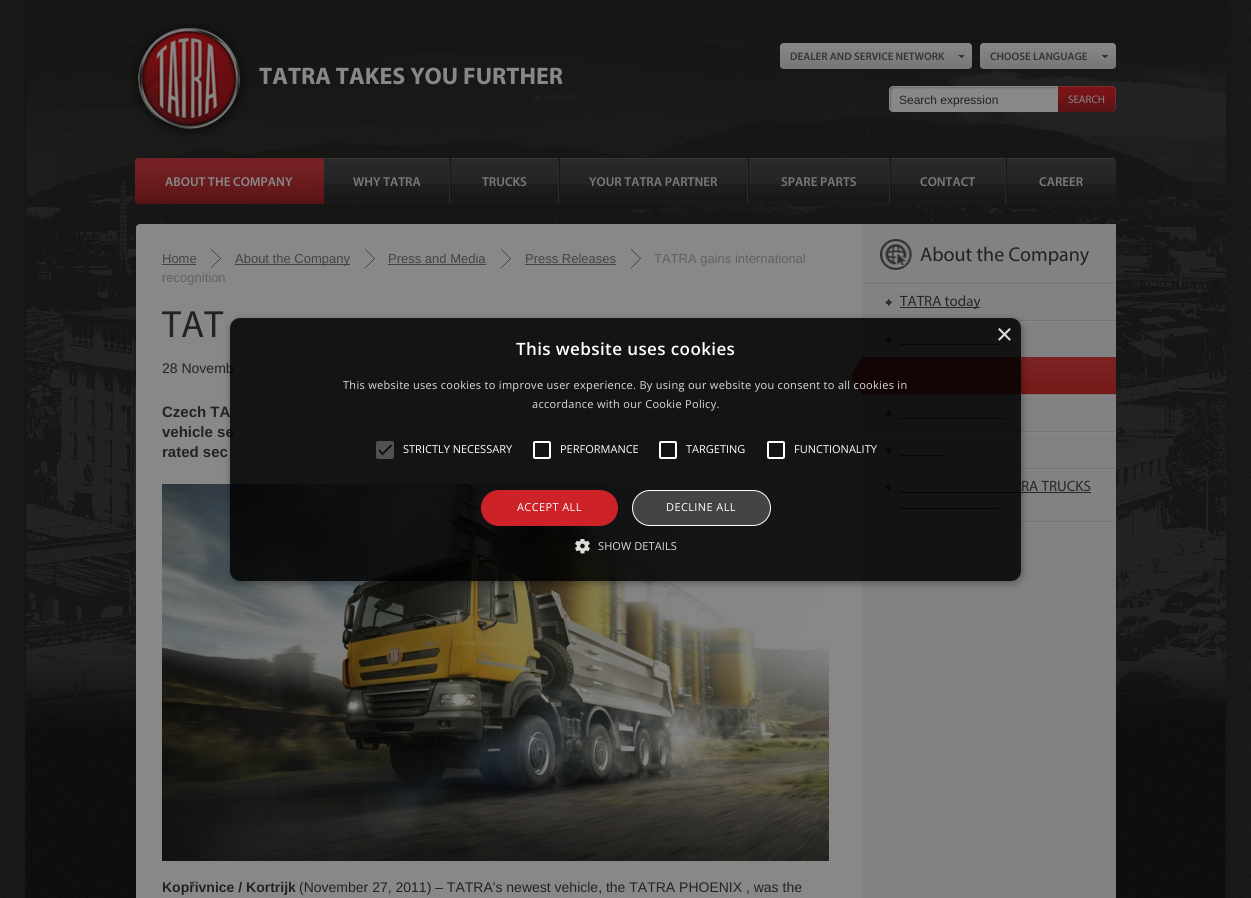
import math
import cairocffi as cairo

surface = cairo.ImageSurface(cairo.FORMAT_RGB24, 1251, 898)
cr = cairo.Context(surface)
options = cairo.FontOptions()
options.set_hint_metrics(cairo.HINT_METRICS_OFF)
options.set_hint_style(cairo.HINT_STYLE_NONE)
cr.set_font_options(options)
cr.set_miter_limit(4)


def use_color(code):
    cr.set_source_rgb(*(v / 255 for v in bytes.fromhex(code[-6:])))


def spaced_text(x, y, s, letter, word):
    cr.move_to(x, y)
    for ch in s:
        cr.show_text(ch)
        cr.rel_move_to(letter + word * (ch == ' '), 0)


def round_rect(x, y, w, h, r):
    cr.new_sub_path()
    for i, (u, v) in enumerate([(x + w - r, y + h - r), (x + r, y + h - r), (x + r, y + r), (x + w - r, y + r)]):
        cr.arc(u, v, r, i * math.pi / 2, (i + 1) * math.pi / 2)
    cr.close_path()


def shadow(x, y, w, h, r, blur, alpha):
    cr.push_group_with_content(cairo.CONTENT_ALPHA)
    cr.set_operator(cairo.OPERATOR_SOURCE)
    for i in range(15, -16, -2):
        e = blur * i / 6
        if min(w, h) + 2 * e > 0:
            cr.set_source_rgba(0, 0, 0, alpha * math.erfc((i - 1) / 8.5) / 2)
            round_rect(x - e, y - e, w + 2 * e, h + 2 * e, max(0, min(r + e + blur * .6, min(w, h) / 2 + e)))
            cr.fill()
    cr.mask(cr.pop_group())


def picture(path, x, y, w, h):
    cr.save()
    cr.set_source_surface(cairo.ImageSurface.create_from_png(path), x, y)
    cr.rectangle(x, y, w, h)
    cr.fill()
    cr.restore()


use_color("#ffffff")
cr.paint()
picture("img3.png", 0, 0, 1251, 898)
picture("img4.png", 26, 0, 1200, 730)
picture("img1.png", 780, 43, 192, 26)
cr.select_font_face("Myriad SemiBold")
cr.set_font_size(11)
use_color("#343434")
cr.move_to(790, 60)
cr.show_text("DEALER AND SERVICE NETWORK")
picture("img2.png", 980, 43, 136, 26)
cr.move_to(990, 60)
cr.show_text("CHOOSE LANGUAGE")
picture("img5.png", 26, 659, 1200, 71)
picture("img6.png", 131, 23, 116, 114)
cr.select_font_face("Myriad", cairo.FONT_SLANT_NORMAL, cairo.FONT_WEIGHT_BOLD)
cr.set_font_size(24)
use_color("#888888")
cr.move_to(259, 84)
cr.show_text("TATRA TAKES YOU FURTHER")
use_color("#191919")
round_rect(135, 158, 981, 46, 4)
cr.fill()
picture("img7.png", 135, 158, 981, 36)
picture("img8.png", 135, 158, 189, 46)
cr.select_font_face("Myriad SemiBold")
cr.set_font_size(13)
use_color("#888888")
cr.move_to(165, 186)
cr.show_text("ABOUT THE COMPANY")
use_color("#2c2c2c")
cr.rectangle(449, 158, 1, 46)
cr.fill()
use_color("#7a7a7a")
cr.move_to(353, 186)
cr.show_text("WHY TATRA")
use_color("#2c2c2c")
cr.rectangle(558, 158, 1, 46)
cr.fill()
use_color("#171717")
cr.rectangle(450, 158, 1, 36)
cr.fill()
use_color("#7a7a7a")
cr.move_to(482, 186)
cr.show_text("TRUCKS")
use_color("#2c2c2c")
cr.rectangle(747, 158, 1, 46)
cr.fill()
use_color("#171717")
cr.rectangle(559, 158, 1, 36)
cr.fill()
use_color("#7a7a7a")
cr.move_to(589, 186)
cr.show_text("YOUR TATRA PARTNER")
use_color("#2c2c2c")
cr.rectangle(889, 158, 1, 46)
cr.fill()
use_color("#171717")
cr.rectangle(748, 158, 1, 36)
cr.fill()
use_color("#7a7a7a")
cr.move_to(781, 186)
cr.show_text("SPARE PARTS")
use_color("#2c2c2c")
cr.rectangle(1005, 158, 1, 46)
cr.fill()
use_color("#171717")
cr.rectangle(890, 158, 1, 36)
cr.fill()
use_color("#7a7a7a")
cr.move_to(920, 186)
cr.show_text("CONTACT")
use_color("#171717")
cr.rectangle(1006, 158, 1, 36)
cr.fill()
use_color("#7a7a7a")
cr.move_to(1039, 186)
cr.show_text("CAREER")
use_color("#888888")
round_rect(136, 224, 980, 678, 4)
cr.fill()
use_color("#828282")
cr.rectangle(862, 224, 254, 674)
cr.fill()
picture("img9.png", 211, 249, 10, 19)
cr.select_font_face("Liberation Sans")
use_color("#434343")
cr.move_to(162, 263)
cr.show_text("Home")
cr.rectangle(162, 264, 34, 1)
cr.fill()
picture("img9.png", 365, 249, 10, 19)
cr.rectangle(235, 264, 115, 1)
cr.fill()
cr.move_to(235, 263)
cr.show_text("About the Company")
picture("img9.png", 501, 249, 10, 19)
cr.move_to(388, 263)
cr.show_text("Press and Media")
cr.rectangle(388, 264, 98, 1)
cr.fill()
picture("img9.png", 631, 249, 10, 19)
cr.move_to(525, 263)
cr.show_text("Press Releases")
cr.rectangle(525, 264, 91, 1)
cr.fill()
use_color("#616161")
cr.move_to(654, 263)
cr.show_text("TATRA gains international")
cr.move_to(162, 282)
cr.show_text("recognition")
cr.select_font_face("Myriad")
cr.set_font_size(38)
use_color("#222222")
cr.move_to(162, 337)
cr.show_text("TAT")
cr.select_font_face("Liberation Sans")
cr.set_font_size(14)
cr.move_to(162, 373)
cr.show_text("28 Novemb")
cr.select_font_face("Liberation Sans", cairo.FONT_SLANT_NORMAL, cairo.FONT_WEIGHT_BOLD)
cr.set_font_size(15)
cr.move_to(162, 417)
cr.show_text("Czech TA")
cr.move_to(162, 437)
cr.show_text("vehicle se")
cr.move_to(162, 457)
cr.show_text("rated sec")
picture("img10.png", 162, 484, 667, 377)
cr.set_font_size(14)
cr.move_to(162, 892)
cr.show_text("Kopřivnice / Kortrijk")
cr.select_font_face("Liberation Sans")
cr.move_to(299, 892)
cr.show_text("(November 27, 2011) – TATRA's newest vehicle, the TATRA PHOENIX , was the")
use_color("#888888")
cr.rectangle(863, 522, 253, 1)
cr.fill()
use_color("#747474")
cr.rectangle(863, 521, 253, 1)
cr.fill()
picture("img11.png", 880, 239, 33, 32)
cr.select_font_face("Myriad")
cr.set_font_size(20)
use_color("#222222")
cr.move_to(920, 261)
cr.show_text("About the Company")
picture("img12.png", 863, 283, 253, 2)
picture("img13.png", 886, 299, 6, 7)
use_color("#282828")
cr.rectangle(900, 307, 80, 1)
cr.fill()
cr.set_font_size(15)
cr.move_to(900, 306)
cr.show_text("TATRA today")
picture("img12.png", 863, 320, 253, 2)
picture("img13.png", 886, 336, 6, 7)
cr.rectangle(900, 344, 101, 1)
cr.fill()
use_color("#761a1a")
cr.rectangle(863, 383, 253, 11)
cr.fill()
picture("img14.png", 863, 357, 253, 26)
picture("img15.png", 850, 357, 13, 37)
picture("img12.png", 863, 394, 253, 2)
picture("img13.png", 886, 410, 6, 7)
use_color("#282828")
cr.rectangle(900, 418, 104, 1)
cr.fill()
picture("img12.png", 863, 431, 253, 2)
picture("img13.png", 886, 447, 6, 7)
cr.rectangle(900, 455, 43, 1)
cr.fill()
picture("img12.png", 863, 468, 253, 2)
picture("img13.png", 886, 484, 6, 7)
cr.move_to(1021, 491)
cr.show_text("RA TRUCKS")
cr.rectangle(900, 492, 191, 1)
cr.fill()
cr.rectangle(900, 508, 99, 1)
cr.fill()
picture("img16.png", 889, 86, 169, 26)
cr.select_font_face("Liberation Sans")
cr.set_font_size(12)
use_color("#222222")
cr.move_to(899, 104)
cr.show_text("Search expression")
picture("img17.png", 1058, 86, 58, 26)
cr.select_font_face("Myriad")
cr.set_font_size(11)
use_color("#888888")
cr.move_to(1068, 103)
cr.show_text("SEARCH")
cr.save()
cr.set_fill_rule(cairo.FILL_RULE_EVEN_ODD)
cr.new_path()
cr.move_to(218, 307)
cr.line_to(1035, 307)
cr.line_to(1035, 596)
cr.line_to(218, 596)
cr.close_path()
cr.move_to(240, 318)
cr.line_to(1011, 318)
cr.curve_to(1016.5, 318, 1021, 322.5, 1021, 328)
cr.line_to(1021, 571)
cr.curve_to(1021, 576.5, 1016.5, 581, 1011, 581)
cr.line_to(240, 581)
cr.curve_to(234.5, 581, 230, 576.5, 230, 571)
cr.line_to(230, 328)
cr.curve_to(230, 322.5, 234.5, 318, 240, 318)
cr.close_path()
cr.clip()
use_color("#000000")
shadow(231, 320, 791, 263, 10, 4, 0.35)
cr.restore()
cr.set_source_rgba(0, 0, 0, 0.85)
round_rect(230, 318, 791, 263, 10)
cr.fill()
cr.select_font_face("Liberation Sans")
cr.set_font_size(29)
use_color("#dcdcdc")
cr.move_to(996, 344)
cr.show_text("×")
cr.select_font_face("Open Sans SemiBold")
cr.set_font_size(17)
use_color("#ffffff")
spaced_text(516, 355, "This website uses cookies", 0.4, 0)
cr.select_font_face("Open Sans")
cr.set_font_size(11)
use_color("#dcdcdc")
spaced_text(343, 389, "This website uses cookies to improve user experience. By using our website you consent to all cookies in", 0.3, 0)
spaced_text(532, 408, "accordance with our Cookie Policy.", 0.3, 0)
cr.set_source_rgba(1, 1, 1, 0.26)
round_rect(376, 441, 18, 18, 2)
cr.fill()
cr.new_path()
cr.move_to(379, 450)
cr.line_to(382.5, 454)
cr.line_to(391.5, 445)
cr.set_source_rgba(0, 0, 0, 0.85)
cr.set_line_width(1.8)
cr.stroke()
use_color("#ffffff")
cr.move_to(403, 453)
cr.show_text("STRICTLY NECESSARY")
round_rect(534, 442, 16, 16, 1)
cr.set_line_width(2)
cr.stroke()
cr.move_to(560, 453)
cr.show_text("PERFORMANCE")
round_rect(660, 442, 16, 16, 1)
cr.stroke()
cr.move_to(686, 453)
cr.show_text("TARGETING")
round_rect(768, 442, 16, 16, 1)
cr.stroke()
cr.move_to(794, 453)
cr.show_text("FUNCTIONALITY")
use_color("#cd2227")
round_rect(481, 490, 137, 36, 18)
cr.fill()
use_color("#ffffff")
spaced_text(517, 511, "ACCEPT ALL", 0.4, 0)
use_color("#444444")
round_rect(632.5, 490.5, 138, 35, 17.5)
cr.fill_preserve()
use_color("#ffffff")
cr.set_line_width(1)
cr.stroke()
spaced_text(666, 511, "DECLINE ALL", 0.4, 0)
picture("img18.png", 575, 539, 15, 15)
use_color("#dcdcdc")
spaced_text(598, 550, "SHOW DETAILS", 0.1, 0)
surface.write_to_png("result.png")
